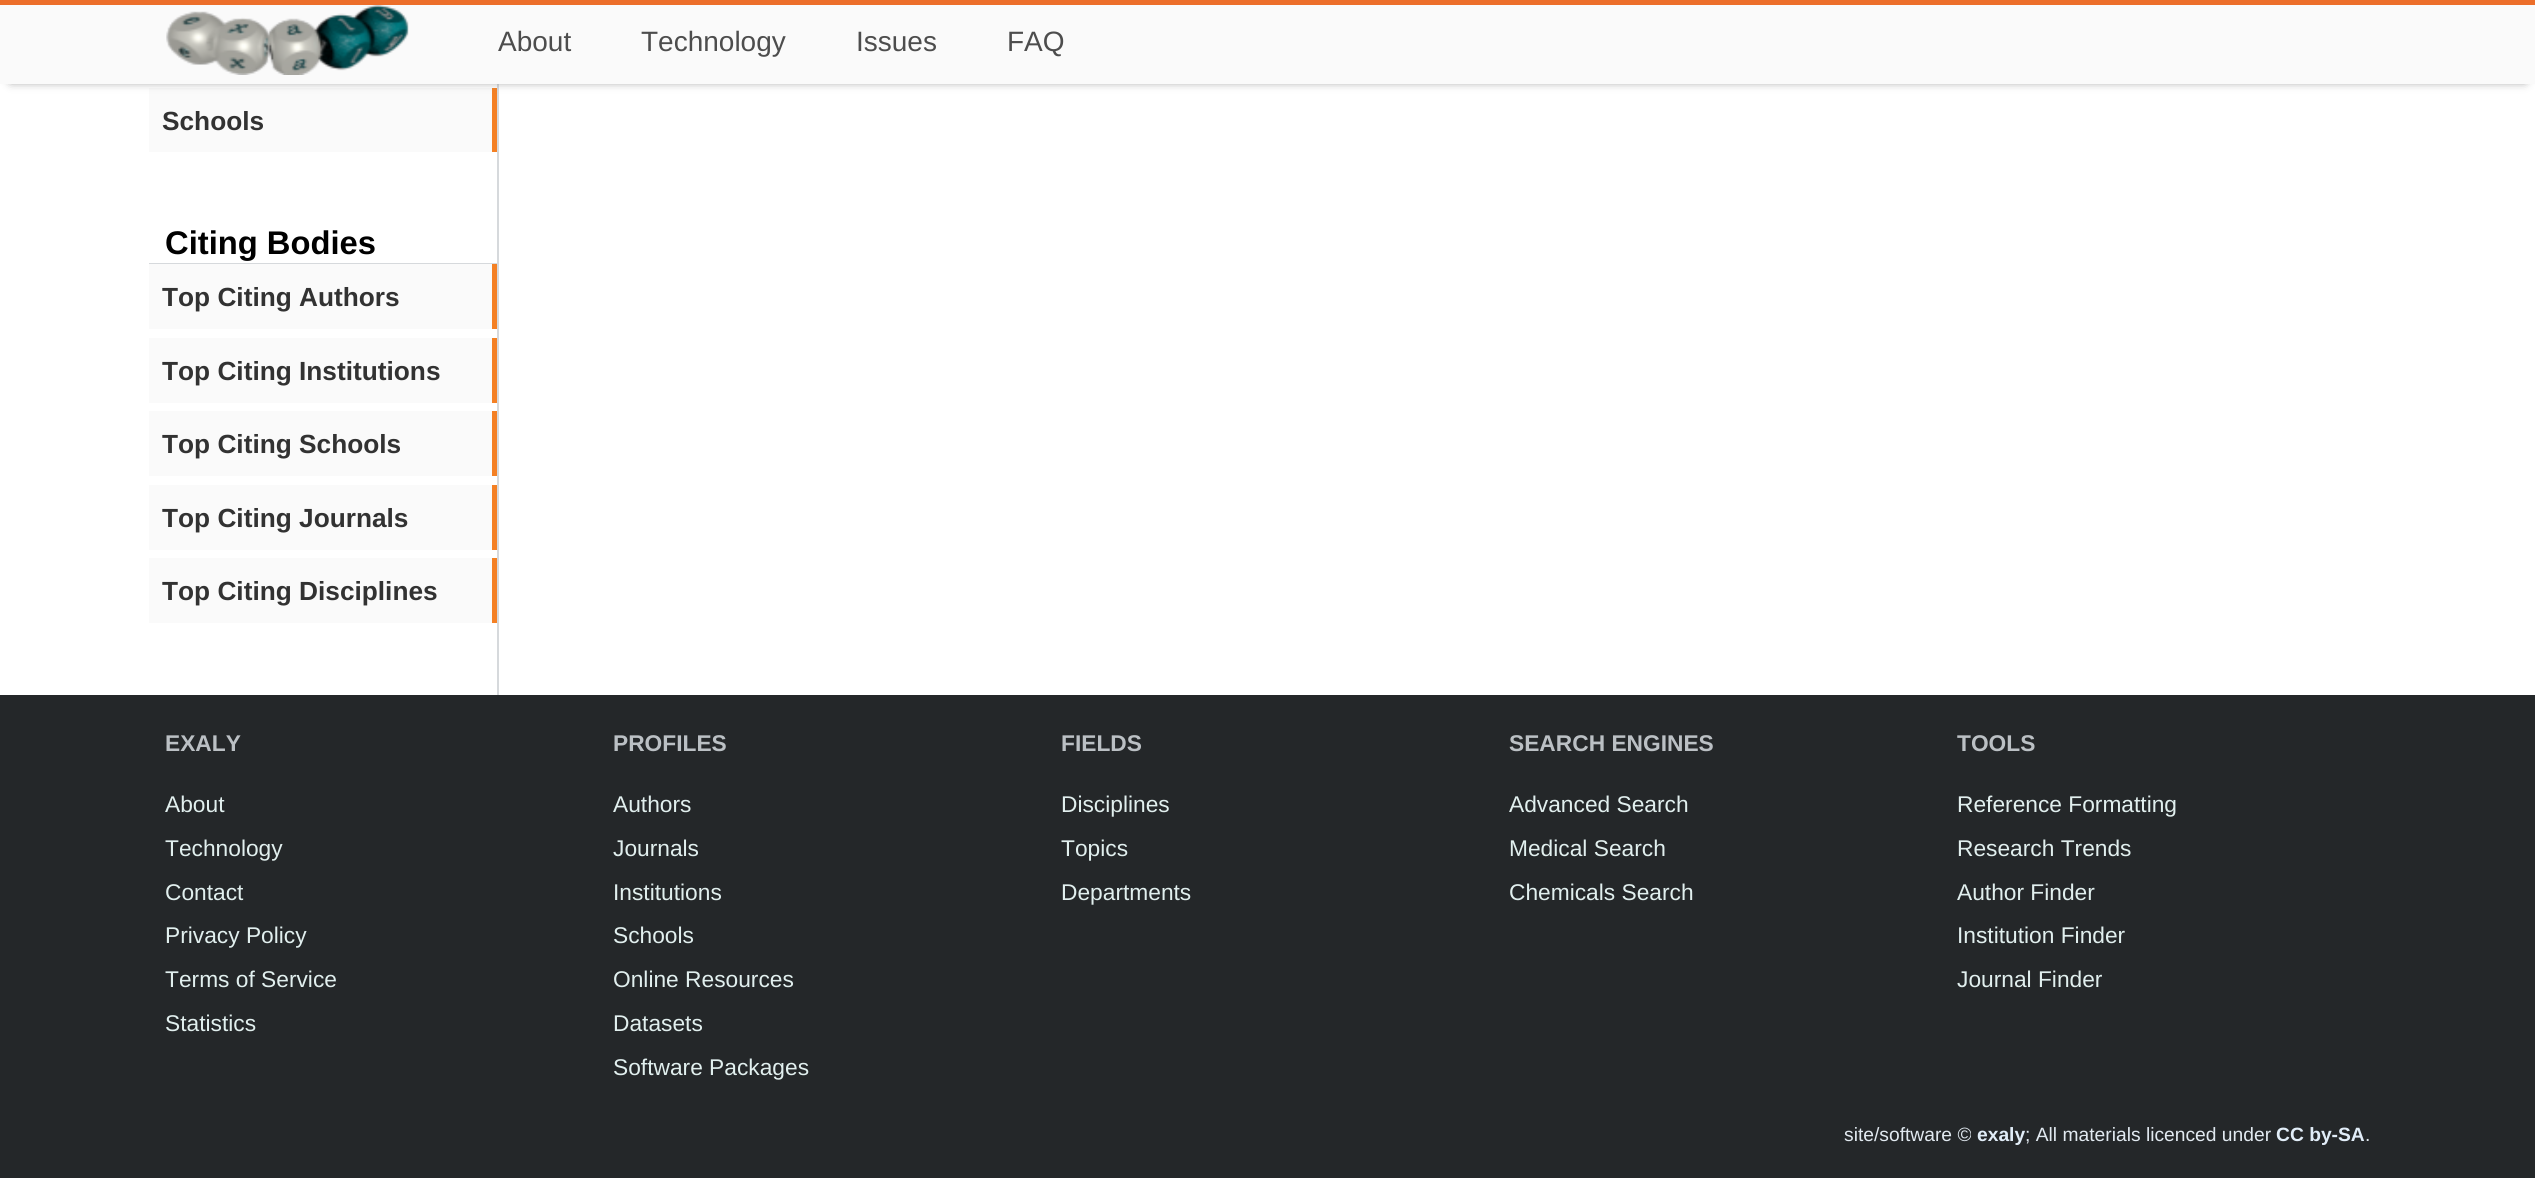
import math
import cairocffi as cairo

surface = cairo.ImageSurface(cairo.FORMAT_RGB24, 2535, 1178)
cr = cairo.Context(surface)
options = cairo.FontOptions()
options.set_hint_metrics(cairo.HINT_METRICS_OFF)
options.set_hint_style(cairo.HINT_STYLE_NONE)
cr.set_font_options(options)
cr.set_miter_limit(4)


def use_color(code):
    cr.set_source_rgb(*(v / 255 for v in bytes.fromhex(code[-6:])))


def round_rect(x, y, w, h, r):
    cr.new_sub_path()
    for i, (u, v) in enumerate([(x + w - r, y + h - r), (x + r, y + h - r), (x + r, y + r), (x + w - r, y + r)]):
        cr.arc(u, v, r, i * math.pi / 2, (i + 1) * math.pi / 2)
    cr.close_path()


def shadow(x, y, w, h, r, blur, alpha):
    cr.push_group_with_content(cairo.CONTENT_ALPHA)
    cr.set_operator(cairo.OPERATOR_SOURCE)
    for i in range(15, -16, -2):
        e = blur * i / 6
        if min(w, h) + 2 * e > 0:
            cr.set_source_rgba(0, 0, 0, alpha * math.erfc((i - 1) / 8.5) / 2)
            round_rect(x - e, y - e, w + 2 * e, h + 2 * e, max(0, min(r + e + blur * .6, min(w, h) / 2 + e)))
            cr.fill()
    cr.mask(cr.pop_group())


def picture(path, x, y, w, h):
    cr.save()
    cr.set_source_surface(cairo.ImageSurface.create_from_png(path), x, y)
    cr.rectangle(x, y, w, h)
    cr.fill()
    cr.restore()


use_color("#ffffff")
cr.paint()
use_color("#d6d9dc")
cr.rectangle(497, 84, 2, 611)
cr.fill()
use_color("#fafafa")
cr.rectangle(149, 88, 343, 64)
cr.fill()
use_color("#f48024")
cr.rectangle(492, 88, 5, 64)
cr.fill()
use_color("#777777")
shadow(11, 18, 2514, 63, 0, 5, 1)
use_color("#fafafa")
cr.rectangle(0, 5, 2535, 79)
cr.fill()
use_color("#ec6e2a")
cr.rectangle(0, 0, 2535, 5)
cr.fill()
picture("img1.png", 166, 5, 243, 70)
cr.select_font_face("Liberation Sans")
cr.set_font_size(28)
use_color("#4d4d4d")
cr.move_to(498, 51)
cr.show_text("About")
cr.move_to(641, 51)
cr.show_text("Technology")
cr.move_to(856, 51)
cr.show_text("Issues")
cr.move_to(1007, 51)
cr.show_text("FAQ")
cr.select_font_face("Liberation Sans", cairo.FONT_SLANT_NORMAL, cairo.FONT_WEIGHT_BOLD)
cr.set_font_size(26.25)
use_color("#323232")
cr.move_to(162, 130)
cr.show_text("Schools")
use_color("#d6d9dc")
cr.rectangle(149, 263, 348, 1)
cr.fill()
cr.set_font_size(32.75)
use_color("#000000")
cr.move_to(165, 254)
cr.show_text("Citing Bodies")
use_color("#fafafa")
cr.rectangle(149, 264, 343, 65)
cr.fill()
use_color("#f48024")
cr.rectangle(492, 264, 5, 65)
cr.fill()
cr.set_font_size(26.25)
use_color("#323232")
cr.move_to(162, 306)
cr.show_text("Top Citing Authors")
use_color("#fafafa")
cr.rectangle(149, 338, 343, 65)
cr.fill()
use_color("#f48024")
cr.rectangle(492, 338, 5, 65)
cr.fill()
use_color("#323232")
cr.move_to(162, 380)
cr.show_text("Top Citing Institutions")
use_color("#fafafa")
cr.rectangle(149, 411, 343, 65)
cr.fill()
use_color("#f48024")
cr.rectangle(492, 411, 5, 65)
cr.fill()
use_color("#323232")
cr.move_to(162, 453)
cr.show_text("Top Citing Schools")
use_color("#fafafa")
cr.rectangle(149, 485, 343, 65)
cr.fill()
use_color("#f48024")
cr.rectangle(492, 485, 5, 65)
cr.fill()
use_color("#323232")
cr.move_to(162, 527)
cr.show_text("Top Citing Journals")
use_color("#fafafa")
cr.rectangle(149, 558, 343, 65)
cr.fill()
use_color("#f48024")
cr.rectangle(492, 558, 5, 65)
cr.fill()
use_color("#323232")
cr.move_to(162, 600)
cr.show_text("Top Citing Disciplines")
use_color("#242729")
cr.rectangle(0, 695, 2535, 483)
cr.fill()
cr.set_font_size(22.75)
use_color("#bbc0c4")
cr.move_to(165, 751)
cr.show_text("EXALY")
cr.select_font_face("Liberation Sans")
use_color("#e1efee")
cr.move_to(165, 812)
cr.show_text("About")
cr.move_to(165, 856)
cr.show_text("Technology")
cr.move_to(165, 900)
cr.show_text("Contact")
cr.move_to(165, 943)
cr.show_text("Privacy Policy")
cr.move_to(165, 987)
cr.show_text("Terms of Service")
cr.move_to(165, 1031)
cr.show_text("Statistics")
cr.select_font_face("Liberation Sans", cairo.FONT_SLANT_NORMAL, cairo.FONT_WEIGHT_BOLD)
use_color("#bbc0c4")
cr.move_to(613, 751)
cr.show_text("PROFILES")
cr.select_font_face("Liberation Sans")
use_color("#e1efee")
cr.move_to(613, 812)
cr.show_text("Authors")
cr.move_to(613, 856)
cr.show_text("Journals")
cr.move_to(613, 900)
cr.show_text("Institutions")
cr.move_to(613, 943)
cr.show_text("Schools")
cr.move_to(613, 987)
cr.show_text("Online Resources")
cr.move_to(613, 1031)
cr.show_text("Datasets")
cr.move_to(613, 1075)
cr.show_text("Software Packages")
cr.select_font_face("Liberation Sans", cairo.FONT_SLANT_NORMAL, cairo.FONT_WEIGHT_BOLD)
use_color("#bbc0c4")
cr.move_to(1061, 751)
cr.show_text("FIELDS")
cr.select_font_face("Liberation Sans")
use_color("#e1efee")
cr.move_to(1061, 812)
cr.show_text("Disciplines")
cr.move_to(1061, 856)
cr.show_text("Topics")
cr.move_to(1061, 900)
cr.show_text("Departments")
cr.select_font_face("Liberation Sans", cairo.FONT_SLANT_NORMAL, cairo.FONT_WEIGHT_BOLD)
use_color("#bbc0c4")
cr.move_to(1509, 751)
cr.show_text("SEARCH ENGINES")
cr.select_font_face("Liberation Sans")
use_color("#e1efee")
cr.move_to(1509, 812)
cr.show_text("Advanced Search")
cr.move_to(1509, 856)
cr.show_text("Medical Search")
cr.move_to(1509, 900)
cr.show_text("Chemicals Search")
cr.select_font_face("Liberation Sans", cairo.FONT_SLANT_NORMAL, cairo.FONT_WEIGHT_BOLD)
use_color("#bbc0c4")
cr.move_to(1957, 751)
cr.show_text("TOOLS")
cr.select_font_face("Liberation Sans")
use_color("#e1efee")
cr.move_to(1957, 812)
cr.show_text("Reference Formatting")
cr.move_to(1957, 856)
cr.show_text("Research Trends")
cr.move_to(1957, 900)
cr.show_text("Author Finder")
cr.move_to(1957, 943)
cr.show_text("Institution Finder")
cr.move_to(1957, 987)
cr.show_text("Journal Finder")
cr.set_font_size(19.25)
use_color("#e1e9f0")
cr.move_to(1844, 1141)
cr.show_text("site/software ©")
cr.select_font_face("Liberation Sans", cairo.FONT_SLANT_NORMAL, cairo.FONT_WEIGHT_BOLD)
use_color("#e1edf8")
cr.move_to(1977, 1141)
cr.show_text("exaly")
cr.select_font_face("Liberation Sans")
use_color("#e1e9f0")
cr.move_to(2025, 1141)
cr.show_text("; All materials licenced under")
cr.select_font_face("Liberation Sans", cairo.FONT_SLANT_NORMAL, cairo.FONT_WEIGHT_BOLD)
use_color("#e1edf8")
cr.move_to(2276, 1141)
cr.show_text("CC by-SA")
cr.select_font_face("Liberation Sans")
use_color("#e1e9f0")
cr.move_to(2365, 1141)
cr.show_text(".")
surface.write_to_png("result.png")
